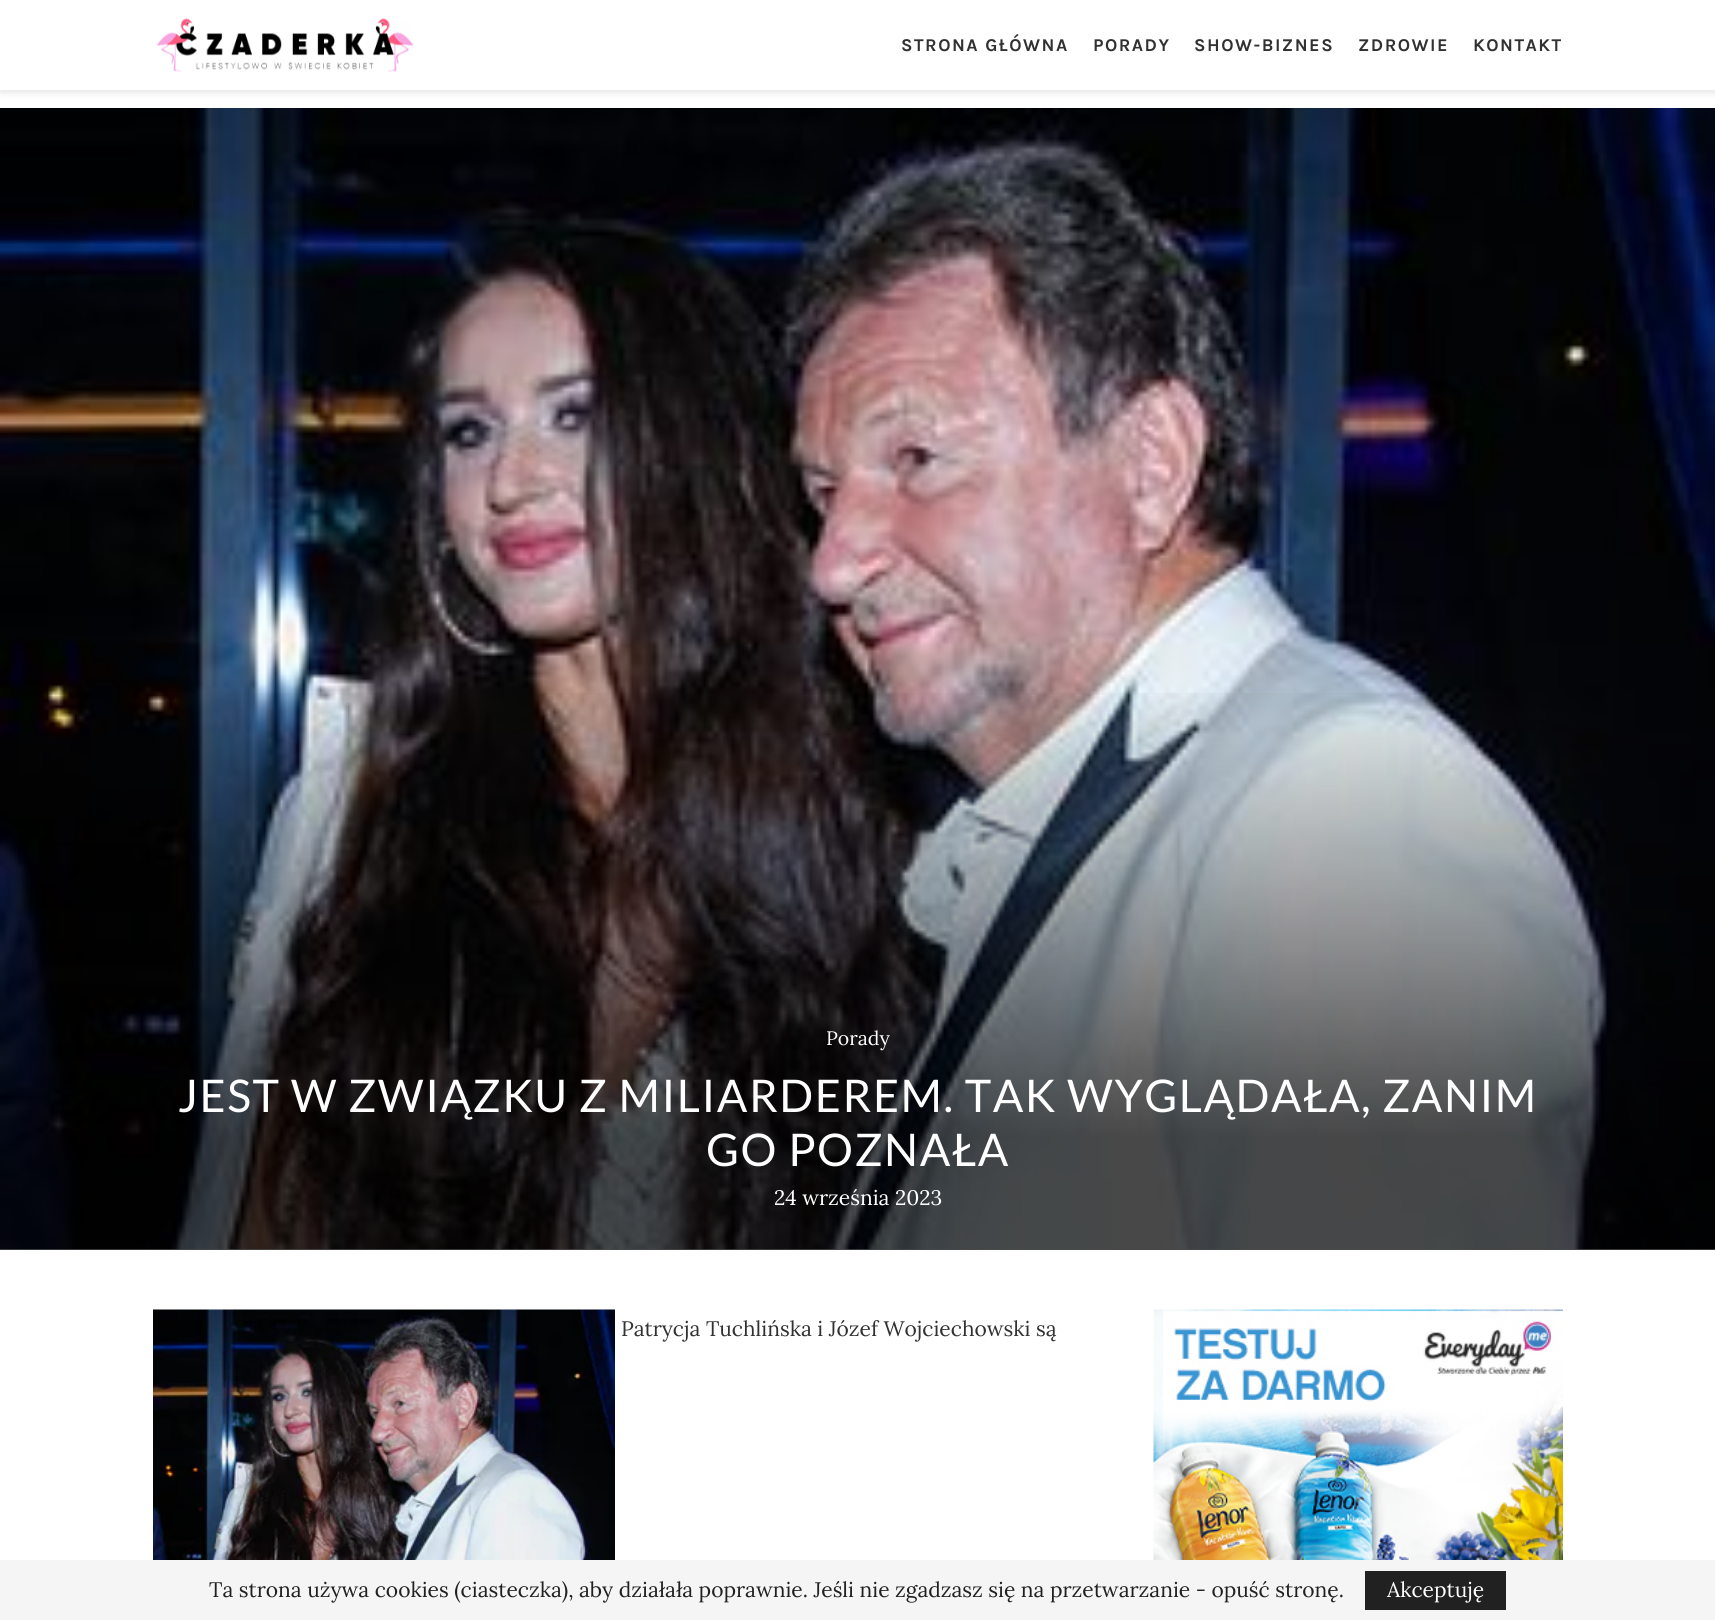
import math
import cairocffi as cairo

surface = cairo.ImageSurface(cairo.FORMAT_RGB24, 1715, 1620)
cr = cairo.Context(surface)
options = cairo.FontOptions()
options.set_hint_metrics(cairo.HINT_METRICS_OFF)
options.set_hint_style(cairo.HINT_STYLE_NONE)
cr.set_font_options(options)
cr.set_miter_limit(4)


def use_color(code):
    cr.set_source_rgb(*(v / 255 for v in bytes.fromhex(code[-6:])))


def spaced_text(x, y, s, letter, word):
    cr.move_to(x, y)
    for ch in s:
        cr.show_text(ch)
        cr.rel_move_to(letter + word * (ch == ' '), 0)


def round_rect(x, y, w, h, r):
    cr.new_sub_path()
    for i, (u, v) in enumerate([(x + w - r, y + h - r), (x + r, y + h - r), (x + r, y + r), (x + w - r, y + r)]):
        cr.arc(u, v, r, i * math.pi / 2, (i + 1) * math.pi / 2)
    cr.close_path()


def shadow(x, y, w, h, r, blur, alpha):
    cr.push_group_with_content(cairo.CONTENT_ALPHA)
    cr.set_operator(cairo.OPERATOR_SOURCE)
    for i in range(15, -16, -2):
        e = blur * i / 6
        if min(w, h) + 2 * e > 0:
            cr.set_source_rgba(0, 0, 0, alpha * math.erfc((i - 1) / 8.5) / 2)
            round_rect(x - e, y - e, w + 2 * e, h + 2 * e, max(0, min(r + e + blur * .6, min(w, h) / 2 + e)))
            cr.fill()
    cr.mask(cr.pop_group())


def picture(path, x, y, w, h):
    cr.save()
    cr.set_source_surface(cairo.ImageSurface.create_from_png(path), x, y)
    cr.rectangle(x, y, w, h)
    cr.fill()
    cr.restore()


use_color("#ffffff")
cr.paint()
cr.save()
cr.rectangle(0, 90, 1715, 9)
cr.clip()
use_color("#bebebe")
shadow(0, 2, 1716, 90, 0, 4, 0.46)
cr.restore()
picture("img1.png", 157, 18, 256, 54)
cr.select_font_face("Karla", cairo.FONT_SLANT_NORMAL, cairo.FONT_WEIGHT_BOLD)
cr.set_font_size(18)
use_color("#313131")
spaced_text(901, 51, "STRONA GŁÓWNA", 1.5, 0)
spaced_text(1093, 51, "PORADY", 1.5, 0)
spaced_text(1194, 51, "SHOW-BIZNES", 1.5, 0)
spaced_text(1358, 51, "ZDROWIE", 1.5, 0)
spaced_text(1473, 51, "KONTAKT", 1.5, 0)
use_color("#f5f5f5")
cr.rectangle(0, 1249, 1715, 1)
cr.fill()
picture("img2.png", 0, 108, 1715, 1142)
gradient = cairo.LinearGradient(858, 108, 858, 1250)
gradient.add_color_stop_rgba(0.5, 0, 0, 0, 0)
gradient.add_color_stop_rgba(0.9, 0, 0, 0, 0.7)
cr.set_source(gradient)
cr.rectangle(0, 693, 1715, 557)
cr.fill()
cr.select_font_face("Lora")
cr.set_font_size(19.5)
use_color("#ffffff")
cr.move_to(826, 1045)
cr.show_text("Porady")
cr.select_font_face("Lato")
cr.set_font_size(45)
spaced_text(178, 1112, "JEST W ZWIĄZKU Z MILIARDEREM. TAK WYGLĄDAŁA, ZANIM", 1.5, 0)
spaced_text(706, 1166, "GO POZNAŁA", 1.5, 0)
cr.select_font_face("Lora")
cr.set_font_size(21)
cr.move_to(774, 1205)
cr.show_text("24 września 2023")
picture("img3.png", 153, 1309, 462, 251)
use_color("#313131")
cr.move_to(621, 1336)
cr.show_text("Patrycja Tuchlińska i Józef Wojciechowski są")
picture("img4.png", 1153, 1309, 410, 251)
use_color("#f5f5f5")
cr.rectangle(0, 1560, 1715, 60)
cr.fill()
use_color("#212121")
cr.move_to(209, 1597)
cr.show_text("Ta strona używa cookies (ciasteczka), aby działała poprawnie. Jeśli nie zgadzasz się na przetwarzanie - opuść stronę.")
cr.rectangle(1365, 1571, 141, 39)
cr.fill()
use_color("#ffffff")
cr.move_to(1387, 1597)
cr.show_text("Akceptuję")
surface.write_to_png("result.png")
